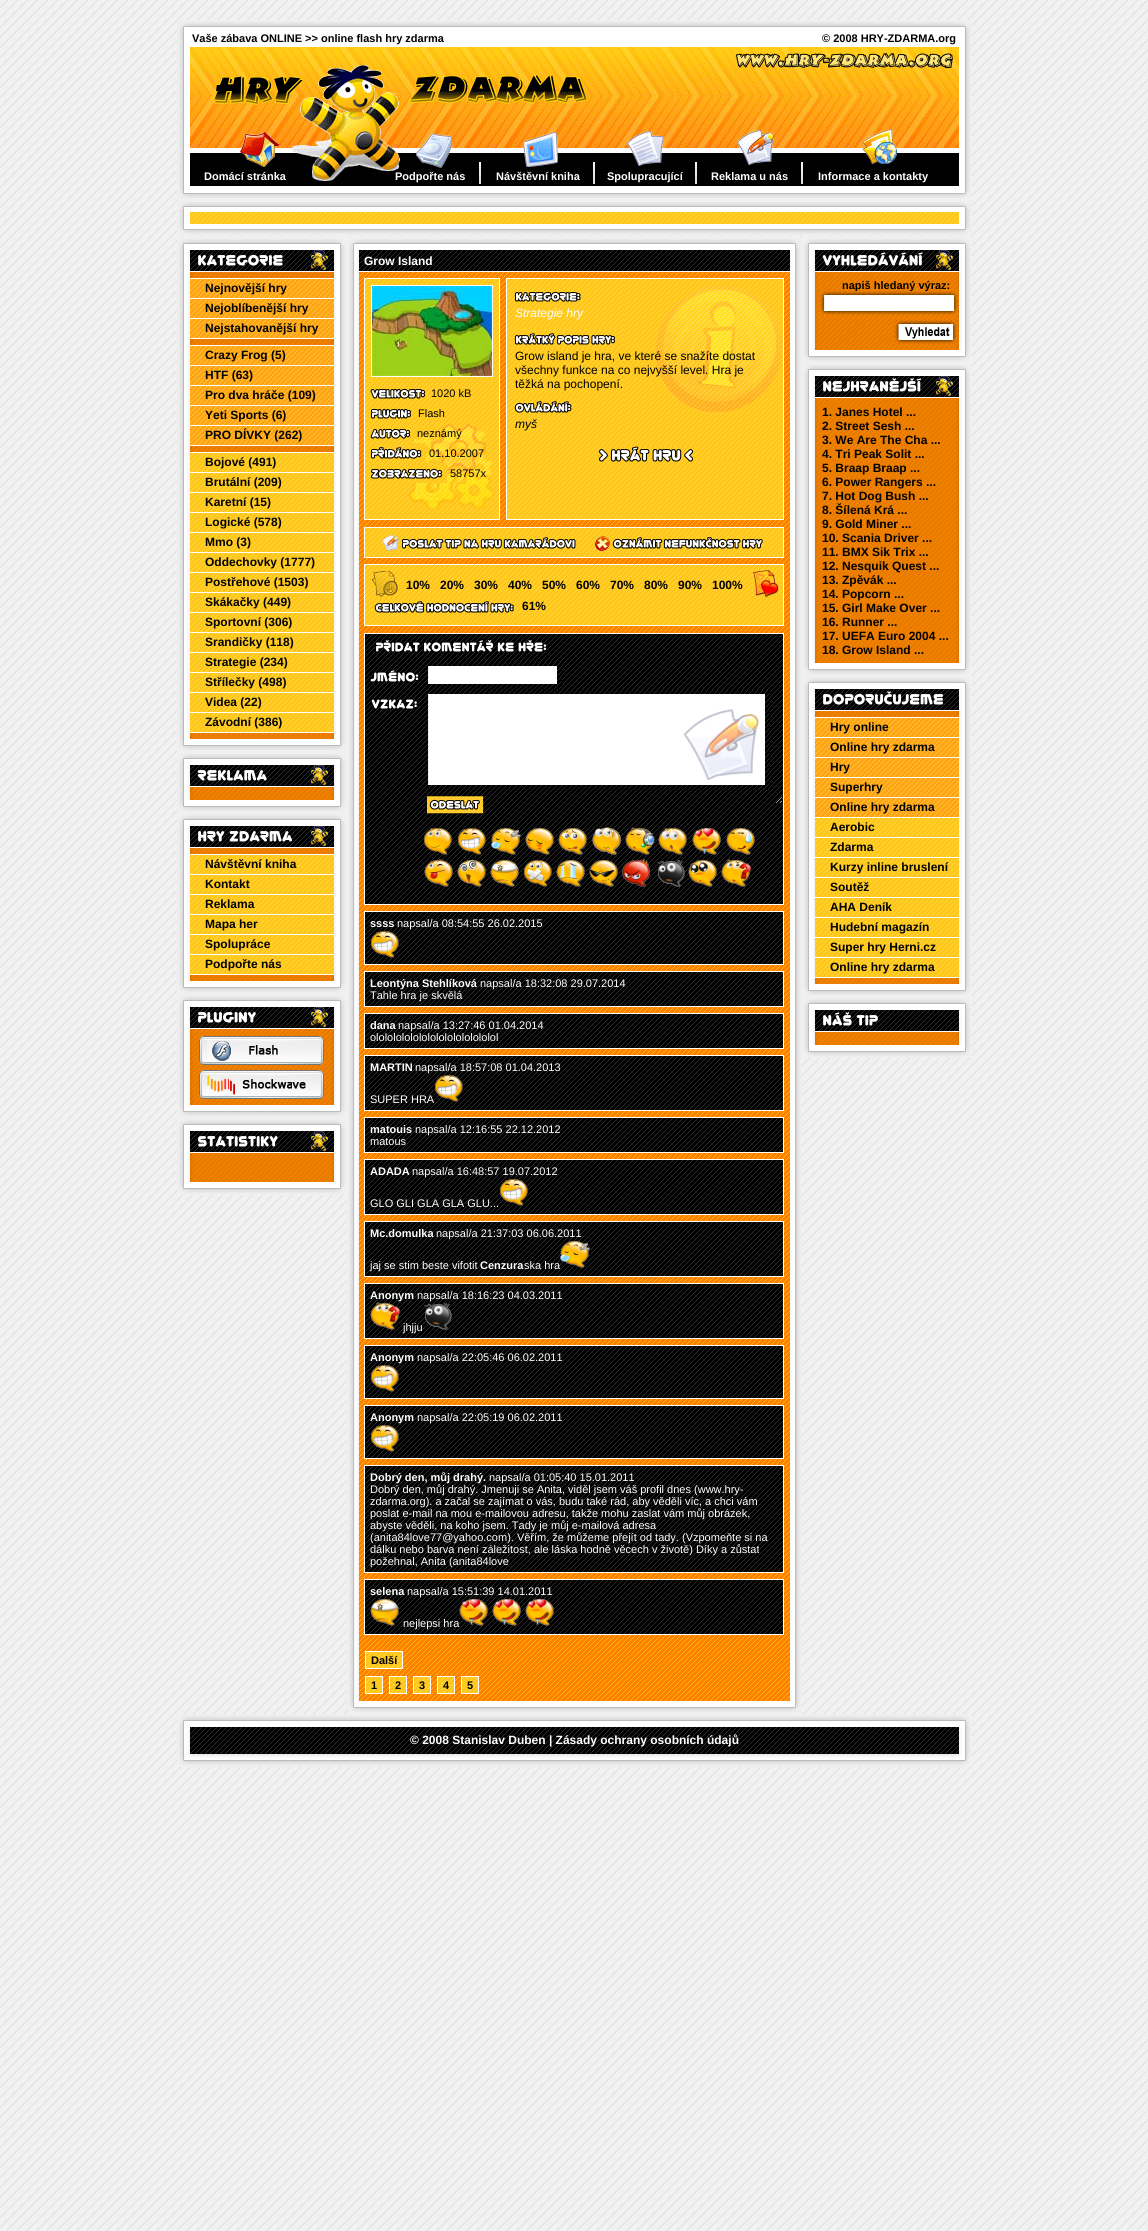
import math
import cairocffi as cairo

surface = cairo.ImageSurface(cairo.FORMAT_RGB24, 1148, 2231)
cr = cairo.Context(surface)
options = cairo.FontOptions()
options.set_hint_metrics(cairo.HINT_METRICS_OFF)
options.set_hint_style(cairo.HINT_STYLE_NONE)
cr.set_font_options(options)
cr.set_miter_limit(4)


def use_color(code):
    cr.set_source_rgb(*(v / 255 for v in bytes.fromhex(code[-6:])))


def picture(path, x, y, w, h):
    cr.save()
    cr.set_source_surface(cairo.ImageSurface.create_from_png(path), x, y)
    cr.rectangle(x, y, w, h)
    cr.fill()
    cr.restore()


use_color("#ffffff")
cr.paint()
picture("img1.png", 0, 0, 1148, 2231)
picture("img2.png", 177, 20, 795, 180)
picture("img3.png", 179, 20, 791, 10)
cr.select_font_face("Liberation Sans", cairo.FONT_SLANT_NORMAL, cairo.FONT_WEIGHT_BOLD)
cr.set_font_size(11)
use_color("#000000")
cr.move_to(192, 42)
cr.show_text("Vaše zábava ONLINE >> online flash hry zdarma")
cr.move_to(822, 42)
cr.show_text("© 2008 HRY-ZDARMA.org")
picture("img4.png", 190, 47, 769, 139)
use_color("#ffffff")
cr.move_to(204, 180)
cr.show_text("Domácí stránka")
cr.move_to(395, 180)
cr.show_text("Podpořte nás")
picture("img5.png", 479, 162, 2, 22)
cr.move_to(496, 180)
cr.show_text("Návštěvní kniha")
picture("img5.png", 593, 162, 2, 22)
cr.move_to(607, 180)
cr.show_text("Spolupracující")
picture("img5.png", 695, 162, 2, 22)
cr.move_to(711, 180)
cr.show_text("Reklama u nás")
picture("img5.png", 801, 162, 2, 22)
cr.move_to(818, 180)
cr.show_text("Informace a kontakty")
picture("img6.png", 179, 190, 791, 10)
picture("img7.png", 177, 200, 795, 36)
picture("img3.png", 179, 200, 791, 10)
picture("img8.png", 190, 212, 769, 12)
picture("img6.png", 179, 226, 791, 10)
picture("img9.png", 177, 237, 170, 13)
picture("img10.png", 177, 250, 170, 489)
cr.rectangle(190, 271, 144, 1)
cr.fill()
picture("img11.png", 190, 250, 144, 21)
picture("img12.png", 190, 279, 144, 19)
cr.rectangle(190, 278, 144, 1)
cr.fill()
cr.rectangle(190, 298, 144, 1)
cr.fill()
cr.set_font_size(12)
use_color("#000000")
cr.move_to(205, 292)
cr.show_text("Nejnovější hry")
picture("img12.png", 190, 299, 144, 19)
use_color("#ffffff")
cr.rectangle(190, 318, 144, 1)
cr.fill()
use_color("#000000")
cr.move_to(205, 312)
cr.show_text("Nejoblíbenější hry")
picture("img12.png", 190, 319, 144, 19)
use_color("#ffffff")
cr.rectangle(190, 338, 144, 1)
cr.fill()
use_color("#000000")
cr.move_to(205, 332)
cr.show_text("Nejstahovanější hry")
picture("img12.png", 190, 346, 144, 19)
use_color("#ffffff")
cr.rectangle(190, 345, 144, 1)
cr.fill()
cr.rectangle(190, 365, 144, 1)
cr.fill()
use_color("#000000")
cr.move_to(205, 359)
cr.show_text("Crazy Frog (5)")
picture("img12.png", 190, 366, 144, 19)
use_color("#ffffff")
cr.rectangle(190, 385, 144, 1)
cr.fill()
use_color("#000000")
cr.move_to(205, 379)
cr.show_text("HTF (63)")
picture("img12.png", 190, 386, 144, 19)
use_color("#ffffff")
cr.rectangle(190, 405, 144, 1)
cr.fill()
use_color("#000000")
cr.move_to(205, 399)
cr.show_text("Pro dva hráče (109)")
picture("img12.png", 190, 406, 144, 19)
use_color("#ffffff")
cr.rectangle(190, 425, 144, 1)
cr.fill()
use_color("#000000")
cr.move_to(205, 419)
cr.show_text("Yeti Sports (6)")
picture("img12.png", 190, 426, 144, 19)
use_color("#ffffff")
cr.rectangle(190, 445, 144, 1)
cr.fill()
use_color("#000000")
cr.move_to(205, 439)
cr.show_text("PRO DÍVKY (262)")
picture("img13.png", 190, 453, 144, 19)
use_color("#ffffff")
cr.rectangle(190, 452, 144, 1)
cr.fill()
cr.rectangle(190, 472, 144, 1)
cr.fill()
use_color("#000000")
cr.move_to(205, 466)
cr.show_text("Bojové (491)")
picture("img13.png", 190, 473, 144, 19)
use_color("#ffffff")
cr.rectangle(190, 492, 144, 1)
cr.fill()
use_color("#000000")
cr.move_to(205, 486)
cr.show_text("Brutální (209)")
picture("img13.png", 190, 493, 144, 19)
use_color("#ffffff")
cr.rectangle(190, 512, 144, 1)
cr.fill()
use_color("#000000")
cr.move_to(205, 506)
cr.show_text("Karetní (15)")
picture("img13.png", 190, 513, 144, 19)
use_color("#ffffff")
cr.rectangle(190, 532, 144, 1)
cr.fill()
use_color("#000000")
cr.move_to(205, 526)
cr.show_text("Logické (578)")
picture("img13.png", 190, 533, 144, 19)
use_color("#ffffff")
cr.rectangle(190, 552, 144, 1)
cr.fill()
use_color("#000000")
cr.move_to(205, 546)
cr.show_text("Mmo (3)")
picture("img13.png", 190, 553, 144, 19)
use_color("#ffffff")
cr.rectangle(190, 572, 144, 1)
cr.fill()
use_color("#000000")
cr.move_to(205, 566)
cr.show_text("Oddechovky (1777)")
picture("img13.png", 190, 573, 144, 19)
use_color("#ffffff")
cr.rectangle(190, 592, 144, 1)
cr.fill()
use_color("#000000")
cr.move_to(205, 586)
cr.show_text("Postřehové (1503)")
picture("img13.png", 190, 593, 144, 19)
use_color("#ffffff")
cr.rectangle(190, 612, 144, 1)
cr.fill()
use_color("#000000")
cr.move_to(205, 606)
cr.show_text("Skákačky (449)")
picture("img13.png", 190, 613, 144, 19)
use_color("#ffffff")
cr.rectangle(190, 632, 144, 1)
cr.fill()
use_color("#000000")
cr.move_to(205, 626)
cr.show_text("Sportovní (306)")
picture("img13.png", 190, 633, 144, 19)
use_color("#ffffff")
cr.rectangle(190, 652, 144, 1)
cr.fill()
use_color("#000000")
cr.move_to(205, 646)
cr.show_text("Srandičky (118)")
picture("img13.png", 190, 653, 144, 19)
use_color("#ffffff")
cr.rectangle(190, 672, 144, 1)
cr.fill()
use_color("#000000")
cr.move_to(205, 666)
cr.show_text("Strategie (234)")
picture("img13.png", 190, 673, 144, 19)
use_color("#ffffff")
cr.rectangle(190, 692, 144, 1)
cr.fill()
use_color("#000000")
cr.move_to(205, 686)
cr.show_text("Střílečky (498)")
picture("img13.png", 190, 693, 144, 19)
use_color("#ffffff")
cr.rectangle(190, 712, 144, 1)
cr.fill()
use_color("#000000")
cr.move_to(205, 706)
cr.show_text("Videa (22)")
picture("img13.png", 190, 713, 144, 19)
use_color("#ffffff")
cr.rectangle(190, 732, 144, 1)
cr.fill()
use_color("#000000")
cr.move_to(205, 726)
cr.show_text("Závodní (386)")
picture("img14.png", 177, 739, 170, 13)
picture("img9.png", 177, 752, 170, 13)
picture("img15.png", 177, 765, 170, 35)
use_color("#ffffff")
cr.rectangle(190, 786, 144, 1)
cr.fill()
picture("img16.png", 190, 765, 144, 21)
picture("img14.png", 177, 800, 170, 13)
picture("img9.png", 177, 813, 170, 13)
picture("img17.png", 177, 826, 170, 155)
cr.rectangle(190, 847, 144, 1)
cr.fill()
picture("img18.png", 190, 826, 144, 21)
picture("img13.png", 190, 855, 144, 19)
cr.rectangle(190, 854, 144, 1)
cr.fill()
cr.rectangle(190, 874, 144, 1)
cr.fill()
use_color("#000000")
cr.move_to(205, 868)
cr.show_text("Návštěvní kniha")
picture("img13.png", 190, 875, 144, 19)
use_color("#ffffff")
cr.rectangle(190, 894, 144, 1)
cr.fill()
use_color("#000000")
cr.move_to(205, 888)
cr.show_text("Kontakt")
picture("img13.png", 190, 895, 144, 19)
use_color("#ffffff")
cr.rectangle(190, 914, 144, 1)
cr.fill()
use_color("#000000")
cr.move_to(205, 908)
cr.show_text("Reklama")
picture("img13.png", 190, 915, 144, 19)
use_color("#ffffff")
cr.rectangle(190, 934, 144, 1)
cr.fill()
use_color("#000000")
cr.move_to(205, 928)
cr.show_text("Mapa her")
picture("img13.png", 190, 935, 144, 19)
use_color("#ffffff")
cr.rectangle(190, 954, 144, 1)
cr.fill()
use_color("#000000")
cr.move_to(205, 948)
cr.show_text("Spolupráce")
picture("img13.png", 190, 955, 144, 19)
use_color("#ffffff")
cr.rectangle(190, 974, 144, 1)
cr.fill()
use_color("#000000")
cr.move_to(205, 968)
cr.show_text("Podpořte nás")
picture("img14.png", 177, 981, 170, 13)
picture("img9.png", 177, 994, 170, 13)
picture("img19.png", 177, 1007, 170, 98)
use_color("#ffffff")
cr.rectangle(190, 1028, 144, 1)
cr.fill()
picture("img20.png", 190, 1007, 144, 21)
picture("img21.png", 199, 1036, 125, 29)
picture("img22.png", 199, 1070, 125, 29)
picture("img14.png", 177, 1105, 170, 13)
picture("img9.png", 177, 1118, 170, 13)
picture("img23.png", 177, 1131, 170, 51)
cr.rectangle(190, 1152, 144, 1)
cr.fill()
picture("img24.png", 190, 1131, 144, 21)
picture("img14.png", 177, 1182, 170, 13)
picture("img25.png", 347, 237, 455, 1477)
picture("img26.png", 349, 237, 451, 13)
picture("img27.png", 359, 250, 431, 21)
cr.rectangle(359, 271, 431, 1)
cr.fill()
cr.move_to(364, 265)
cr.show_text("Grow Island")
picture("img28.png", 365, 279, 134, 240)
cr.rectangle(364.5, 278.5, 135, 241)
cr.set_line_width(1)
cr.stroke()
picture("img29.png", 407, 423, 89, 86)
cr.rectangle(371.5, 285.5, 121, 91)
cr.stroke()
picture("img30.png", 372, 286, 120, 90)
picture("img31.png", 370, 388, 56, 11)
cr.select_font_face("Liberation Sans")
cr.set_font_size(11)
use_color("#000000")
cr.move_to(431, 397)
cr.show_text("1020 kB")
picture("img32.png", 370, 409, 41, 10)
cr.move_to(418, 417)
cr.show_text("Flash")
picture("img33.png", 370, 428, 44, 15)
cr.move_to(417, 437)
cr.show_text("neznámý")
picture("img34.png", 370, 443, 56, 20)
cr.move_to(429, 457)
cr.show_text("01.10.2007")
picture("img35.png", 371, 463, 76, 20)
cr.move_to(450, 477)
cr.show_text("58757x")
picture("img36.png", 507, 279, 276, 240)
cr.rectangle(506.5, 278.5, 277, 241)
use_color("#ffffff")
cr.stroke()
picture("img37.png", 624, 279, 159, 180)
picture("img38.png", 514, 291, 67, 11)
cr.select_font_face("Liberation Sans", cairo.FONT_SLANT_ITALIC)
cr.set_font_size(12)
cr.move_to(515, 317)
cr.show_text("Strategie hry")
picture("img39.png", 511, 329, 108, 20)
cr.select_font_face("Liberation Sans")
use_color("#000000")
cr.move_to(515, 360)
cr.show_text("Grow island je hra, ve které se snažíte dostat")
cr.move_to(515, 374)
cr.show_text("všechny funkce na co nejvyšší level. Hra je")
cr.move_to(515, 388)
cr.show_text("těžká na pochopení.")
picture("img40.png", 511, 397, 65, 20)
cr.select_font_face("Liberation Sans", cairo.FONT_SLANT_ITALIC)
cr.move_to(515, 428)
cr.show_text("myš")
picture("img41.png", 599, 446, 95, 16)
picture("img42.png", 365, 528, 418, 29)
cr.rectangle(364.5, 527.5, 419, 30)
use_color("#ffffff")
cr.stroke()
picture("img43.png", 382, 535, 194, 16)
picture("img44.png", 595, 536, 168, 15)
picture("img45.png", 365, 565, 418, 60)
cr.rectangle(364.5, 564.5, 419, 61)
cr.stroke()
picture("img46.png", 372, 571, 26, 26)
cr.select_font_face("Liberation Sans", cairo.FONT_SLANT_NORMAL, cairo.FONT_WEIGHT_BOLD)
use_color("#000000")
cr.move_to(406, 589)
cr.show_text("10%")
cr.move_to(440, 589)
cr.show_text("20%")
cr.move_to(474, 589)
cr.show_text("30%")
cr.move_to(508, 589)
cr.show_text("40%")
cr.move_to(542, 589)
cr.show_text("50%")
cr.move_to(576, 589)
cr.show_text("60%")
cr.move_to(610, 589)
cr.show_text("70%")
cr.move_to(644, 589)
cr.show_text("80%")
cr.move_to(678, 589)
cr.show_text("90%")
cr.move_to(712, 589)
cr.show_text("100%")
picture("img47.png", 752, 570, 28, 28)
picture("img48.png", 372, 598, 145, 19)
cr.move_to(522, 610)
cr.show_text("61%")
picture("img49.png", 365, 634, 418, 270)
cr.rectangle(364.5, 633.5, 419, 271)
use_color("#ffffff")
cr.stroke()
picture("img50.png", 375, 639, 172, 14)
picture("img51.png", 370, 669, 49, 14)
picture("img52.png", 428, 662, 134, 27)
picture("img53.png", 370, 698, 48, 12)
picture("img54.png", 428, 690, 354, 113)
picture("img55.png", 427, 796, 57, 18)
picture("img56.png", 424, 828, 28, 27)
picture("img57.png", 458, 828, 28, 27)
picture("img58.png", 491, 828, 30, 27)
picture("img59.png", 525, 828, 29, 27)
picture("img60.png", 558, 828, 29, 27)
picture("img61.png", 592, 827, 29, 28)
picture("img62.png", 625, 827, 30, 28)
picture("img63.png", 658, 827, 29, 28)
picture("img64.png", 692, 828, 29, 27)
picture("img65.png", 726, 828, 29, 27)
picture("img66.png", 424, 859, 29, 28)
picture("img67.png", 457, 860, 29, 27)
picture("img68.png", 490, 860, 29, 27)
picture("img69.png", 524, 860, 28, 27)
picture("img70.png", 556, 860, 29, 27)
picture("img71.png", 589, 860, 29, 27)
picture("img72.png", 622, 859, 28, 28)
picture("img73.png", 657, 860, 28, 27)
picture("img74.png", 688, 860, 29, 27)
picture("img75.png", 721, 859, 30, 28)
picture("img76.png", 365, 912, 418, 52)
cr.rectangle(364.5, 911.5, 419, 53)
cr.stroke()
cr.set_font_size(11)
cr.move_to(370, 927)
cr.show_text("ssss")
cr.select_font_face("Liberation Sans")
cr.move_to(397, 927)
cr.show_text("napsal/a 08:54:55 26.02.2015")
picture("img77.png", 371, 931, 28, 27)
picture("img78.png", 365, 972, 418, 34)
cr.rectangle(364.5, 971.5, 419, 35)
cr.stroke()
cr.select_font_face("Liberation Sans", cairo.FONT_SLANT_NORMAL, cairo.FONT_WEIGHT_BOLD)
cr.move_to(370, 987)
cr.show_text("Leontýna Stehlíková")
cr.select_font_face("Liberation Sans")
cr.move_to(480, 987)
cr.show_text("napsal/a 18:32:08 29.07.2014")
cr.move_to(370, 999)
cr.show_text("Tahle hra je skvělá")
picture("img78.png", 365, 1014, 418, 34)
cr.rectangle(364.5, 1013.5, 419, 35)
cr.stroke()
cr.select_font_face("Liberation Sans", cairo.FONT_SLANT_NORMAL, cairo.FONT_WEIGHT_BOLD)
cr.move_to(370, 1029)
cr.show_text("dana")
cr.select_font_face("Liberation Sans")
cr.move_to(398, 1029)
cr.show_text("napsal/a 13:27:46 01.04.2014")
cr.move_to(370, 1041)
cr.show_text("ololololololololololololololol")
picture("img79.png", 365, 1056, 418, 54)
cr.rectangle(364.5, 1055.5, 419, 55)
cr.stroke()
cr.select_font_face("Liberation Sans", cairo.FONT_SLANT_NORMAL, cairo.FONT_WEIGHT_BOLD)
cr.move_to(370, 1071)
cr.show_text("MARTIN")
cr.select_font_face("Liberation Sans")
cr.move_to(415, 1071)
cr.show_text("napsal/a 18:57:08 01.04.2013")
cr.move_to(370, 1103)
cr.show_text("SUPER HRA")
picture("img80.png", 435, 1075, 28, 27)
picture("img78.png", 365, 1118, 418, 34)
cr.rectangle(364.5, 1117.5, 419, 35)
cr.stroke()
cr.select_font_face("Liberation Sans", cairo.FONT_SLANT_NORMAL, cairo.FONT_WEIGHT_BOLD)
cr.move_to(370, 1133)
cr.show_text("matouis")
cr.select_font_face("Liberation Sans")
cr.move_to(415, 1133)
cr.show_text("napsal/a 12:16:55 22.12.2012")
cr.move_to(370, 1145)
cr.show_text("matous")
picture("img79.png", 365, 1160, 418, 54)
cr.rectangle(364.5, 1159.5, 419, 55)
cr.stroke()
cr.select_font_face("Liberation Sans", cairo.FONT_SLANT_NORMAL, cairo.FONT_WEIGHT_BOLD)
cr.move_to(370, 1175)
cr.show_text("ADADA")
cr.select_font_face("Liberation Sans")
cr.move_to(412, 1175)
cr.show_text("napsal/a 16:48:57 19.07.2012")
cr.move_to(370, 1207)
cr.show_text("GLO GLI GLA GLA GLU...")
picture("img80.png", 500, 1179, 28, 27)
picture("img79.png", 365, 1222, 418, 54)
cr.rectangle(364.5, 1221.5, 419, 55)
cr.stroke()
cr.select_font_face("Liberation Sans", cairo.FONT_SLANT_NORMAL, cairo.FONT_WEIGHT_BOLD)
cr.move_to(370, 1237)
cr.show_text("Mc.domulka")
cr.select_font_face("Liberation Sans")
cr.move_to(436, 1237)
cr.show_text("napsal/a 21:37:03 06.06.2011")
cr.move_to(370, 1269)
cr.show_text("jaj se stim beste vifotit")
cr.select_font_face("Liberation Sans", cairo.FONT_SLANT_NORMAL, cairo.FONT_WEIGHT_BOLD)
cr.move_to(480, 1269)
cr.show_text("Cenzura")
cr.select_font_face("Liberation Sans")
cr.move_to(524, 1269)
cr.show_text("ska hra")
picture("img81.png", 560, 1241, 30, 27)
picture("img79.png", 365, 1284, 418, 54)
cr.rectangle(364.5, 1283.5, 419, 55)
cr.stroke()
cr.select_font_face("Liberation Sans", cairo.FONT_SLANT_NORMAL, cairo.FONT_WEIGHT_BOLD)
cr.move_to(370, 1299)
cr.show_text("Anonym")
cr.select_font_face("Liberation Sans")
cr.move_to(417, 1299)
cr.show_text("napsal/a 18:16:23 04.03.2011")
picture("img82.png", 370, 1302, 30, 28)
cr.move_to(403, 1331)
cr.show_text("jhjju")
picture("img73.png", 424, 1303, 28, 27)
picture("img76.png", 365, 1346, 418, 52)
cr.rectangle(364.5, 1345.5, 419, 53)
cr.stroke()
cr.select_font_face("Liberation Sans", cairo.FONT_SLANT_NORMAL, cairo.FONT_WEIGHT_BOLD)
cr.move_to(370, 1361)
cr.show_text("Anonym")
cr.select_font_face("Liberation Sans")
cr.move_to(417, 1361)
cr.show_text("napsal/a 22:05:46 06.02.2011")
picture("img77.png", 371, 1365, 28, 27)
picture("img76.png", 365, 1406, 418, 52)
cr.rectangle(364.5, 1405.5, 419, 53)
cr.stroke()
cr.select_font_face("Liberation Sans", cairo.FONT_SLANT_NORMAL, cairo.FONT_WEIGHT_BOLD)
cr.move_to(370, 1421)
cr.show_text("Anonym")
cr.select_font_face("Liberation Sans")
cr.move_to(417, 1421)
cr.show_text("napsal/a 22:05:19 06.02.2011")
picture("img77.png", 371, 1425, 28, 27)
picture("img83.png", 365, 1466, 418, 106)
cr.rectangle(364.5, 1465.5, 419, 107)
cr.stroke()
cr.select_font_face("Liberation Sans", cairo.FONT_SLANT_NORMAL, cairo.FONT_WEIGHT_BOLD)
cr.move_to(370, 1481)
cr.show_text("Dobrý den, můj drahý.")
cr.select_font_face("Liberation Sans")
cr.move_to(489, 1481)
cr.show_text("napsal/a 01:05:40 15.01.2011")
cr.move_to(370, 1493)
cr.show_text("Dobrý den, můj drahý. Jmenuji se Anita, viděl jsem váš profil dnes (www.hry-")
cr.move_to(370, 1505)
cr.show_text("zdarma.org). a začal se zajímat o vás, budu také rád, aby věděli víc, a chci vám")
cr.move_to(370, 1517)
cr.show_text("poslat e-mail na mou e-mailovou adresu, takže mohu zaslat vám můj obrázek,")
cr.move_to(370, 1529)
cr.show_text("abyste věděli, na koho jsem. Tady je můj e-mailová adresa")
cr.move_to(370, 1541)
cr.show_text("(anita84love77@yahoo.com). Věřím, že můžeme přejít od tady. (Vzpomeňte si na")
cr.move_to(370, 1553)
cr.show_text("dálku nebo barva není záležitost, ale láska hodně věcech v životě) Díky a zůstat")
cr.move_to(370, 1565)
cr.show_text("požehnal, Anita (anita84love")
picture("img79.png", 365, 1580, 418, 54)
cr.rectangle(364.5, 1579.5, 419, 55)
cr.stroke()
cr.select_font_face("Liberation Sans", cairo.FONT_SLANT_NORMAL, cairo.FONT_WEIGHT_BOLD)
cr.move_to(370, 1595)
cr.show_text("selena")
cr.select_font_face("Liberation Sans")
cr.move_to(407, 1595)
cr.show_text("napsal/a 15:51:39 14.01.2011")
picture("img84.png", 370, 1599, 29, 27)
cr.move_to(403, 1627)
cr.show_text("nejlepsi hra")
picture("img85.png", 459, 1599, 29, 27)
picture("img64.png", 492, 1599, 29, 27)
picture("img86.png", 525, 1599, 29, 27)
picture("img87.png", 366, 1652, 36, 16)
cr.rectangle(365.5, 1651.5, 37, 17)
cr.stroke()
cr.select_font_face("Liberation Sans", cairo.FONT_SLANT_NORMAL, cairo.FONT_WEIGHT_BOLD)
use_color("#000000")
cr.move_to(371, 1664)
cr.show_text("Další")
picture("img88.png", 366, 1677, 16, 16)
cr.rectangle(365.5, 1676.5, 17, 17)
use_color("#ffffff")
cr.stroke()
use_color("#000000")
cr.move_to(371, 1689)
cr.show_text("1")
picture("img88.png", 390, 1677, 16, 16)
cr.rectangle(389.5, 1676.5, 17, 17)
use_color("#ffffff")
cr.stroke()
use_color("#000000")
cr.move_to(395, 1689)
cr.show_text("2")
picture("img88.png", 414, 1677, 16, 16)
cr.rectangle(413.5, 1676.5, 17, 17)
use_color("#ffffff")
cr.stroke()
use_color("#000000")
cr.move_to(419, 1689)
cr.show_text("3")
picture("img88.png", 438, 1677, 16, 16)
cr.rectangle(437.5, 1676.5, 17, 17)
use_color("#ffffff")
cr.stroke()
use_color("#000000")
cr.move_to(443, 1689)
cr.show_text("4")
picture("img88.png", 462, 1677, 16, 16)
cr.rectangle(461.5, 1676.5, 17, 17)
use_color("#ffffff")
cr.stroke()
use_color("#000000")
cr.move_to(467, 1689)
cr.show_text("5")
picture("img89.png", 349, 1701, 451, 13)
picture("img9.png", 802, 237, 170, 13)
picture("img90.png", 802, 250, 170, 100)
use_color("#ffffff")
cr.rectangle(815, 271, 144, 1)
cr.fill()
picture("img91.png", 815, 250, 144, 21)
use_color("#000000")
cr.move_to(842, 289)
cr.show_text("napiš hledaný výraz:")
picture("img92.png", 820, 291, 138, 24)
picture("img93.png", 894, 320, 63, 24)
picture("img14.png", 802, 350, 170, 13)
picture("img9.png", 802, 363, 170, 13)
picture("img94.png", 802, 376, 170, 287)
use_color("#ffffff")
cr.rectangle(815, 397, 144, 1)
cr.fill()
picture("img95.png", 815, 376, 144, 21)
cr.set_font_size(12)
use_color("#000000")
cr.move_to(822, 416)
cr.show_text("1. Janes Hotel ...")
cr.move_to(822, 430)
cr.show_text("2. Street Sesh ...")
cr.move_to(822, 444)
cr.show_text("3. We Are The Cha ...")
cr.move_to(822, 458)
cr.show_text("4. Tri Peak Solit ...")
cr.move_to(822, 472)
cr.show_text("5. Braap Braap ...")
cr.move_to(822, 486)
cr.show_text("6. Power Rangers ...")
cr.move_to(822, 500)
cr.show_text("7. Hot Dog Bush ...")
cr.move_to(822, 514)
cr.show_text("8. Šílená Krá ...")
cr.move_to(822, 528)
cr.show_text("9. Gold Miner ...")
cr.move_to(822, 542)
cr.show_text("10. Scania Driver ...")
cr.move_to(822, 556)
cr.show_text("11. BMX Sik Trix ...")
cr.move_to(822, 570)
cr.show_text("12. Nesquik Quest ...")
cr.move_to(822, 584)
cr.show_text("13. Zpěvák ...")
cr.move_to(822, 598)
cr.show_text("14. Popcorn ...")
cr.move_to(822, 612)
cr.show_text("15. Girl Make Over ...")
cr.move_to(822, 626)
cr.show_text("16. Runner ...")
cr.move_to(822, 640)
cr.show_text("17. UEFA Euro 2004 ...")
cr.move_to(822, 654)
cr.show_text("18. Grow Island ...")
picture("img14.png", 802, 663, 170, 13)
picture("img9.png", 802, 676, 170, 13)
picture("img96.png", 802, 689, 170, 295)
use_color("#ffffff")
cr.rectangle(815, 710, 144, 1)
cr.fill()
picture("img97.png", 815, 689, 144, 21)
picture("img12.png", 815, 718, 144, 19)
cr.rectangle(815, 717, 144, 1)
cr.fill()
cr.rectangle(815, 737, 144, 1)
cr.fill()
use_color("#000000")
cr.move_to(830, 731)
cr.show_text("Hry online")
picture("img12.png", 815, 738, 144, 19)
use_color("#ffffff")
cr.rectangle(815, 757, 144, 1)
cr.fill()
use_color("#000000")
cr.move_to(830, 751)
cr.show_text("Online hry zdarma")
picture("img12.png", 815, 758, 144, 19)
use_color("#ffffff")
cr.rectangle(815, 777, 144, 1)
cr.fill()
use_color("#000000")
cr.move_to(830, 771)
cr.show_text("Hry")
picture("img12.png", 815, 778, 144, 19)
use_color("#ffffff")
cr.rectangle(815, 797, 144, 1)
cr.fill()
use_color("#000000")
cr.move_to(830, 791)
cr.show_text("Superhry")
picture("img12.png", 815, 798, 144, 19)
use_color("#ffffff")
cr.rectangle(815, 817, 144, 1)
cr.fill()
use_color("#000000")
cr.move_to(830, 811)
cr.show_text("Online hry zdarma")
picture("img13.png", 815, 818, 144, 19)
use_color("#ffffff")
cr.rectangle(815, 837, 144, 1)
cr.fill()
use_color("#000000")
cr.move_to(830, 831)
cr.show_text("Aerobic")
picture("img13.png", 815, 838, 144, 19)
use_color("#ffffff")
cr.rectangle(815, 857, 144, 1)
cr.fill()
use_color("#000000")
cr.move_to(830, 851)
cr.show_text("Zdarma")
picture("img13.png", 815, 858, 144, 19)
use_color("#ffffff")
cr.rectangle(815, 877, 144, 1)
cr.fill()
use_color("#000000")
cr.move_to(830, 871)
cr.show_text("Kurzy inline bruslení")
picture("img13.png", 815, 878, 144, 19)
use_color("#ffffff")
cr.rectangle(815, 897, 144, 1)
cr.fill()
use_color("#000000")
cr.move_to(830, 891)
cr.show_text("Soutěž")
picture("img13.png", 815, 898, 144, 19)
use_color("#ffffff")
cr.rectangle(815, 917, 144, 1)
cr.fill()
use_color("#000000")
cr.move_to(830, 911)
cr.show_text("AHA Deník")
picture("img13.png", 815, 918, 144, 19)
use_color("#ffffff")
cr.rectangle(815, 937, 144, 1)
cr.fill()
use_color("#000000")
cr.move_to(830, 931)
cr.show_text("Hudební magazín")
picture("img13.png", 815, 938, 144, 19)
use_color("#ffffff")
cr.rectangle(815, 957, 144, 1)
cr.fill()
use_color("#000000")
cr.move_to(830, 951)
cr.show_text("Super hry Herni.cz")
picture("img13.png", 815, 958, 144, 19)
use_color("#ffffff")
cr.rectangle(815, 977, 144, 1)
cr.fill()
use_color("#000000")
cr.move_to(830, 971)
cr.show_text("Online hry zdarma")
picture("img14.png", 802, 984, 170, 13)
picture("img9.png", 802, 997, 170, 13)
picture("img15.png", 802, 1010, 170, 35)
use_color("#ffffff")
cr.rectangle(815, 1031, 144, 1)
cr.fill()
picture("img98.png", 815, 1010, 144, 21)
picture("img14.png", 802, 1045, 170, 13)
picture("img99.png", 177, 1714, 795, 53)
cr.move_to(410, 1744)
cr.show_text("© 2008 Stanislav Duben | Zásady ochrany osobních údajů")
surface.write_to_png("result.png")
